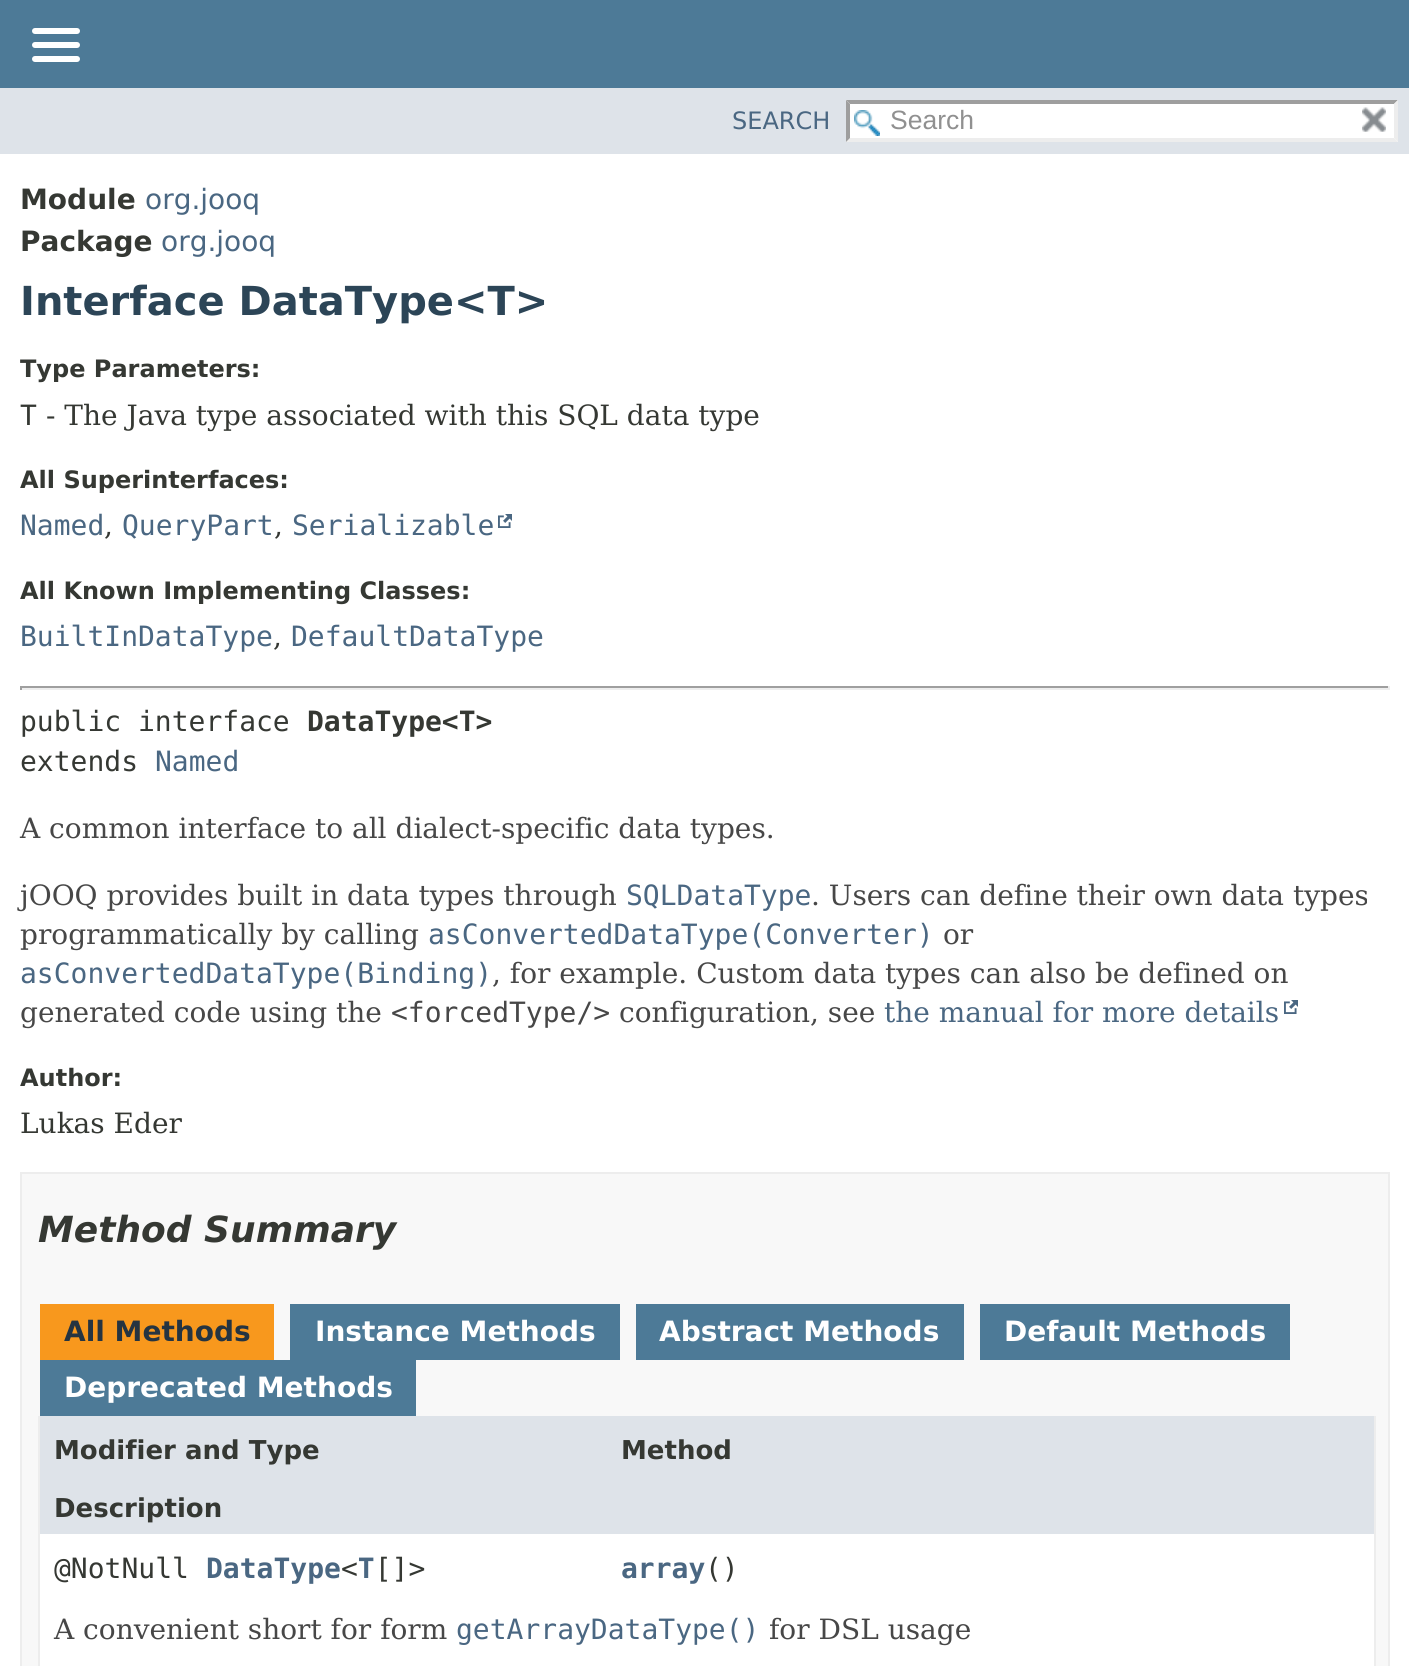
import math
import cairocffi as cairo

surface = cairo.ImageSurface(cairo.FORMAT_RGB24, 1409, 1666)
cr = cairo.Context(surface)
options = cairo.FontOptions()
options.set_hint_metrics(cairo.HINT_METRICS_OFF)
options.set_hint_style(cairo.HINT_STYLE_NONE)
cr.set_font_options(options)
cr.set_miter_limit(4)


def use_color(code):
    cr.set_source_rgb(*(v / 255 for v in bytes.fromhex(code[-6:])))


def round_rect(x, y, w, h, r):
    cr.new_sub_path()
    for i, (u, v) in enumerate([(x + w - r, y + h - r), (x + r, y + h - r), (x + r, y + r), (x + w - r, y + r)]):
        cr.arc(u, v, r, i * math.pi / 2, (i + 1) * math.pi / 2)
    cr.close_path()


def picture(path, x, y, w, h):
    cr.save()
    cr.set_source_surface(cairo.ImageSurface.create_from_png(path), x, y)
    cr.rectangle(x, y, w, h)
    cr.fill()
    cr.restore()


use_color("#ffffff")
cr.paint()
use_color("#4d7a97")
cr.rectangle(0, 0, 1409, 88)
cr.fill()
use_color("#ffffff")
round_rect(32, 28, 48, 6, 3)
cr.fill()
round_rect(32, 42, 48, 6, 3)
cr.fill()
round_rect(32, 56, 48, 6, 3)
cr.fill()
use_color("#dee3e9")
cr.rectangle(0, 88, 1409, 66)
cr.fill()
cr.select_font_face("DejaVu Sans")
cr.set_font_size(24)
use_color("#4a6782")
cr.move_to(732, 129)
cr.show_text("SEARCH")
use_color("#ffffff")
cr.rectangle(846, 100, 552, 42)
cr.fill()
picture("img1.png", 854, 110, 26, 26)
use_color("#9e9e9e")
cr.new_path()
cr.move_to(846, 100)
cr.line_to(1398, 100)
cr.line_to(1394, 104)
cr.line_to(850, 104)
cr.close_path()
cr.fill()
use_color("#ededed")
cr.new_path()
cr.move_to(1398, 100)
cr.line_to(1398, 142)
cr.line_to(1394, 138)
cr.line_to(1394, 104)
cr.close_path()
cr.fill()
cr.new_path()
cr.move_to(1398, 142)
cr.line_to(846, 142)
cr.line_to(850, 138)
cr.line_to(1394, 138)
cr.close_path()
cr.fill()
use_color("#9e9e9e")
cr.new_path()
cr.move_to(846, 142)
cr.line_to(846, 100)
cr.line_to(850, 104)
cr.line_to(850, 138)
cr.close_path()
cr.fill()
cr.select_font_face("Liberation Sans")
cr.set_font_size(26.5)
use_color("#909090")
cr.move_to(890, 129)
cr.show_text("Search")
picture("img2.png", 1362, 107, 24, 25)
cr.select_font_face("DejaVu Sans", cairo.FONT_SLANT_NORMAL, cairo.FONT_WEIGHT_BOLD)
cr.set_font_size(28)
use_color("#353833")
cr.move_to(20, 209)
cr.show_text("Module")
cr.select_font_face("DejaVu Sans")
use_color("#4a6782")
cr.move_to(145, 209)
cr.show_text("org.jooq")
cr.select_font_face("DejaVu Sans", cairo.FONT_SLANT_NORMAL, cairo.FONT_WEIGHT_BOLD)
use_color("#353833")
cr.move_to(20, 251)
cr.show_text("Package")
cr.select_font_face("DejaVu Sans")
use_color("#4a6782")
cr.move_to(161, 251)
cr.show_text("org.jooq")
cr.select_font_face("DejaVu Sans", cairo.FONT_SLANT_NORMAL, cairo.FONT_WEIGHT_BOLD)
cr.set_font_size(40)
use_color("#2c4557")
cr.move_to(20, 315)
cr.show_text("Interface DataType<T>")
cr.set_font_size(24)
use_color("#353833")
cr.move_to(20, 377)
cr.show_text("Type Parameters:")
cr.select_font_face("DejaVu Sans Mono")
cr.set_font_size(28)
cr.move_to(20, 425)
cr.show_text("T")
cr.select_font_face("DejaVu Serif")
cr.move_to(46, 425)
cr.show_text("- The Java type associated with this SQL data type")
cr.select_font_face("DejaVu Sans", cairo.FONT_SLANT_NORMAL, cairo.FONT_WEIGHT_BOLD)
cr.set_font_size(24)
cr.move_to(20, 488)
cr.show_text("All Superinterfaces:")
cr.select_font_face("DejaVu Sans Mono")
cr.set_font_size(28)
use_color("#4a6782")
cr.move_to(20, 535)
cr.show_text("Named")
cr.select_font_face("DejaVu Serif")
use_color("#353833")
cr.move_to(104, 535)
cr.show_text(",")
cr.select_font_face("DejaVu Sans Mono")
use_color("#4a6782")
cr.move_to(122, 535)
cr.show_text("QueryPart")
cr.select_font_face("DejaVu Serif")
use_color("#353833")
cr.move_to(274, 535)
cr.show_text(",")
cr.select_font_face("DejaVu Sans Mono")
use_color("#4a6782")
cr.move_to(292, 535)
cr.show_text("Serializable")
picture("img3.png", 498, 514, 14, 14)
cr.select_font_face("DejaVu Sans", cairo.FONT_SLANT_NORMAL, cairo.FONT_WEIGHT_BOLD)
cr.set_font_size(24)
use_color("#353833")
cr.move_to(20, 599)
cr.show_text("All Known Implementing Classes:")
cr.select_font_face("DejaVu Sans Mono")
cr.set_font_size(28)
use_color("#4a6782")
cr.move_to(20, 646)
cr.show_text("BuiltInDataType")
cr.select_font_face("DejaVu Serif")
use_color("#353833")
cr.move_to(273, 646)
cr.show_text(",")
cr.select_font_face("DejaVu Sans Mono")
use_color("#4a6782")
cr.move_to(291, 646)
cr.show_text("DefaultDataType")
use_color("#9f9f9f")
cr.rectangle(20, 686, 1370, 2)
cr.fill()
use_color("#eeeeee")
cr.rectangle(1388, 686, 2, 4)
cr.fill()
cr.rectangle(20, 688, 1370, 2)
cr.fill()
use_color("#9f9f9f")
cr.rectangle(20, 686, 2, 4)
cr.fill()
use_color("#353833")
cr.move_to(20, 731)
cr.show_text("public interface")
cr.select_font_face("DejaVu Sans Mono", cairo.FONT_SLANT_NORMAL, cairo.FONT_WEIGHT_BOLD)
cr.move_to(307, 731)
cr.show_text("DataType<T>")
cr.select_font_face("DejaVu Sans Mono")
cr.move_to(20, 771)
cr.show_text("extends")
use_color("#4a6782")
cr.move_to(155, 771)
cr.show_text("Named")
cr.select_font_face("DejaVu Serif")
use_color("#474747")
cr.move_to(20, 838)
cr.show_text("A common interface to all dialect-specific data types.")
cr.move_to(20, 905)
cr.show_text("jOOQ provides built in data types through")
cr.select_font_face("DejaVu Sans Mono")
use_color("#4a6782")
cr.move_to(626, 905)
cr.show_text("SQLDataType")
cr.select_font_face("DejaVu Serif")
use_color("#474747")
cr.move_to(811, 905)
cr.show_text(". Users can define their own data types")
cr.move_to(20, 944)
cr.show_text("programmatically by calling")
cr.select_font_face("DejaVu Sans Mono")
use_color("#4a6782")
cr.move_to(428, 944)
cr.show_text("asConvertedDataType(Converter)")
cr.select_font_face("DejaVu Serif")
use_color("#474747")
cr.move_to(943, 944)
cr.show_text("or")
cr.select_font_face("DejaVu Sans Mono")
use_color("#4a6782")
cr.move_to(20, 983)
cr.show_text("asConvertedDataType(Binding)")
cr.select_font_face("DejaVu Serif")
use_color("#474747")
cr.move_to(492, 983)
cr.show_text(", for example. Custom data types can also be defined on")
cr.move_to(20, 1022)
cr.show_text("generated code using the")
cr.select_font_face("DejaVu Sans Mono")
cr.move_to(391, 1022)
cr.show_text("<forcedType/>")
cr.select_font_face("DejaVu Serif")
cr.move_to(619, 1022)
cr.show_text("configuration, see")
use_color("#4a6782")
cr.move_to(884, 1022)
cr.show_text("the manual for more details")
picture("img3.png", 1284, 1000, 14, 14)
cr.select_font_face("DejaVu Sans", cairo.FONT_SLANT_NORMAL, cairo.FONT_WEIGHT_BOLD)
cr.set_font_size(24)
use_color("#353833")
cr.move_to(20, 1086)
cr.show_text("Author:")
cr.select_font_face("DejaVu Serif")
cr.set_font_size(28)
cr.move_to(20, 1133)
cr.show_text("Lukas Eder")
use_color("#f8f8f8")
cr.rectangle(21, 1173, 1368, 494)
cr.fill_preserve()
use_color("#ededed")
cr.stroke()
cr.select_font_face("DejaVu Sans", cairo.FONT_SLANT_ITALIC, cairo.FONT_WEIGHT_BOLD)
cr.set_font_size(36)
use_color("#353833")
cr.move_to(38, 1242)
cr.show_text("Method Summary")
use_color("#f8981d")
cr.rectangle(40, 1304, 234, 56)
cr.fill()
cr.select_font_face("DejaVu Sans", cairo.FONT_SLANT_NORMAL, cairo.FONT_WEIGHT_BOLD)
cr.set_font_size(28)
use_color("#253441")
cr.move_to(64, 1341)
cr.show_text("All Methods")
use_color("#4d7a97")
cr.rectangle(290, 1304, 330, 56)
cr.fill()
use_color("#ffffff")
cr.move_to(315, 1341)
cr.show_text("Instance Methods")
use_color("#4d7a97")
cr.rectangle(636, 1304, 328, 56)
cr.fill()
use_color("#ffffff")
cr.move_to(659, 1341)
cr.show_text("Abstract Methods")
use_color("#4d7a97")
cr.rectangle(980, 1304, 310, 56)
cr.fill()
use_color("#ffffff")
cr.move_to(1004, 1341)
cr.show_text("Default Methods")
use_color("#4d7a97")
cr.rectangle(40, 1360, 376, 56)
cr.fill()
use_color("#ffffff")
cr.move_to(64, 1397)
cr.show_text("Deprecated Methods")
use_color("#ededed")
cr.rectangle(1374, 1416, 2, 250)
cr.fill()
cr.rectangle(38, 1416, 2, 250)
cr.fill()
use_color("#dee3e9")
cr.rectangle(40, 1416, 1334, 118)
cr.fill()
cr.set_font_size(26)
use_color("#353833")
cr.move_to(54, 1459)
cr.show_text("Modifier and Type")
cr.move_to(621, 1459)
cr.show_text("Method")
cr.move_to(54, 1517)
cr.show_text("Description")
use_color("#ffffff")
cr.rectangle(40, 1534, 1334, 132)
cr.fill()
cr.select_font_face("DejaVu Sans Mono")
cr.set_font_size(28)
use_color("#353833")
cr.move_to(54, 1578)
cr.show_text("@NotNull")
cr.select_font_face("DejaVu Sans Mono", cairo.FONT_SLANT_NORMAL, cairo.FONT_WEIGHT_BOLD)
use_color("#4a6782")
cr.move_to(206, 1578)
cr.show_text("DataType T")
cr.select_font_face("DejaVu Sans Mono")
use_color("#353833")
cr.move_to(341, 1578)
cr.show_text("< []>")
cr.select_font_face("DejaVu Sans Mono", cairo.FONT_SLANT_NORMAL, cairo.FONT_WEIGHT_BOLD)
use_color("#4a6782")
cr.move_to(621, 1578)
cr.show_text("array")
cr.select_font_face("DejaVu Sans Mono")
use_color("#353833")
cr.move_to(705, 1578)
cr.show_text("()")
cr.select_font_face("DejaVu Serif")
use_color("#474747")
cr.move_to(54, 1639)
cr.show_text("A convenient short for form")
cr.select_font_face("DejaVu Sans Mono")
use_color("#4a6782")
cr.move_to(456, 1639)
cr.show_text("getArrayDataType()")
cr.select_font_face("DejaVu Serif")
use_color("#474747")
cr.move_to(769, 1639)
cr.show_text("for DSL usage")
surface.write_to_png("result.png")
